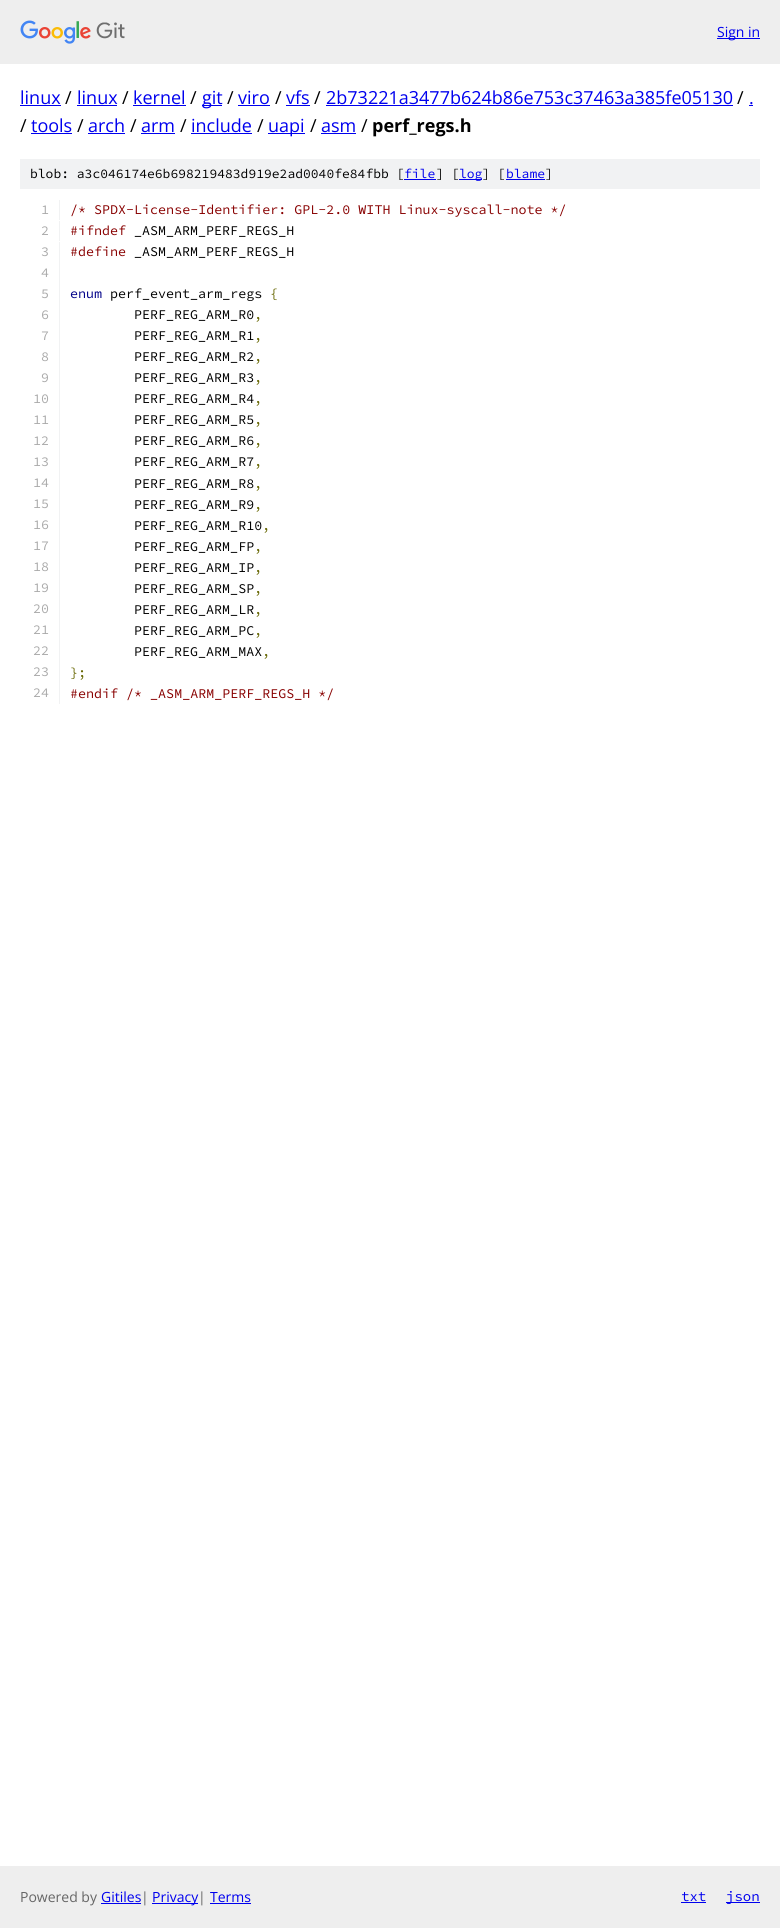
import math
import cairocffi as cairo

surface = cairo.ImageSurface(cairo.FORMAT_RGB24, 780, 1928)
cr = cairo.Context(surface)
options = cairo.FontOptions()
options.set_hint_metrics(cairo.HINT_METRICS_OFF)
options.set_hint_style(cairo.HINT_STYLE_NONE)
cr.set_font_options(options)
cr.set_miter_limit(4)


def use_color(code):
    cr.set_source_rgb(*(v / 255 for v in bytes.fromhex(code[-6:])))


def picture(path, x, y, w, h):
    cr.save()
    cr.set_source_surface(cairo.ImageSurface.create_from_png(path), x, y)
    cr.rectangle(x, y, w, h)
    cr.fill()
    cr.restore()


use_color("#ffffff")
cr.paint()
use_color("#eeeeee")
cr.rectangle(0, 0, 780, 64)
cr.fill()
picture("img1.png", 20, 20, 105, 24)
use_color("#0000ee")
cr.rectangle(717, 38, 43, 1)
cr.fill()
cr.select_font_face("Open Sans")
cr.set_font_size(14)
cr.move_to(717, 37)
cr.show_text("Sign in")
cr.set_font_size(18)
cr.move_to(20, 104)
cr.show_text("linux")
cr.rectangle(20, 105, 41, 1)
cr.fill()
use_color("#000000")
cr.move_to(65, 104)
cr.show_text("/")
use_color("#0000ee")
cr.move_to(77, 104)
cr.show_text("linux")
cr.rectangle(77, 105, 40, 1)
cr.fill()
use_color("#000000")
cr.move_to(122, 104)
cr.show_text("/")
use_color("#0000ee")
cr.move_to(133, 104)
cr.show_text("kernel")
cr.rectangle(133, 105, 53, 1)
cr.fill()
use_color("#000000")
cr.move_to(190, 104)
cr.show_text("/")
use_color("#0000ee")
cr.rectangle(202, 105, 20, 1)
cr.fill()
cr.move_to(202, 104)
cr.show_text("git")
use_color("#000000")
cr.move_to(227, 104)
cr.show_text("/")
use_color("#0000ee")
cr.move_to(238, 104)
cr.show_text("viro")
cr.rectangle(238, 105, 32, 1)
cr.fill()
use_color("#000000")
cr.move_to(275, 104)
cr.show_text("/")
use_color("#0000ee")
cr.move_to(286, 104)
cr.show_text("vfs")
cr.rectangle(286, 105, 24, 1)
cr.fill()
use_color("#000000")
cr.move_to(314, 104)
cr.show_text("/")
use_color("#0000ee")
cr.move_to(326, 104)
cr.show_text("2b73221a3477b624b86e753c37463a385fe05130")
cr.rectangle(326, 105, 407, 1)
cr.fill()
use_color("#000000")
cr.move_to(737, 104)
cr.show_text("/")
use_color("#0000ee")
cr.move_to(749, 104)
cr.show_text(".")
cr.rectangle(749, 105, 4, 1)
cr.fill()
use_color("#000000")
cr.move_to(20, 132)
cr.show_text("/")
use_color("#0000ee")
cr.move_to(31, 132)
cr.show_text("tools")
cr.rectangle(31, 133, 41, 1)
cr.fill()
use_color("#000000")
cr.move_to(77, 132)
cr.show_text("/")
use_color("#0000ee")
cr.move_to(88, 132)
cr.show_text("arch")
cr.rectangle(88, 133, 37, 1)
cr.fill()
use_color("#000000")
cr.move_to(130, 132)
cr.show_text("/")
use_color("#0000ee")
cr.move_to(141, 132)
cr.show_text("arm")
cr.rectangle(141, 133, 34, 1)
cr.fill()
use_color("#000000")
cr.move_to(180, 132)
cr.show_text("/")
use_color("#0000ee")
cr.move_to(191, 132)
cr.show_text("include")
cr.rectangle(191, 133, 61, 1)
cr.fill()
use_color("#000000")
cr.move_to(257, 132)
cr.show_text("/")
use_color("#0000ee")
cr.rectangle(268, 133, 37, 1)
cr.fill()
cr.move_to(268, 132)
cr.show_text("uapi")
use_color("#000000")
cr.move_to(310, 132)
cr.show_text("/")
use_color("#0000ee")
cr.move_to(321, 132)
cr.show_text("asm")
cr.rectangle(321, 133, 35, 1)
cr.fill()
use_color("#000000")
cr.move_to(361, 132)
cr.show_text("/")
cr.select_font_face("Open Sans", cairo.FONT_SLANT_NORMAL, cairo.FONT_WEIGHT_BOLD)
cr.move_to(372, 132)
cr.show_text("perf_regs.h")
use_color("#f1f2f3")
cr.rectangle(20, 159, 740, 30)
cr.fill()
cr.select_font_face("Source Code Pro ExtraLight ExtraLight")
cr.set_font_size(13)
use_color("#000000")
cr.move_to(30, 178)
cr.show_text("blob: a3c046174e6b698219483d919e2ad0040fe84fbb [")
use_color("#0000ee")
cr.move_to(404, 178)
cr.show_text("file")
cr.rectangle(404, 179, 32, 1)
cr.fill()
use_color("#000000")
cr.move_to(436, 178)
cr.show_text("] [")
use_color("#0000ee")
cr.rectangle(459, 179, 23, 1)
cr.fill()
cr.move_to(459, 178)
cr.show_text("log")
use_color("#000000")
cr.move_to(482, 178)
cr.show_text("] [")
use_color("#0000ee")
cr.move_to(506, 178)
cr.show_text("blame")
cr.rectangle(506, 179, 39, 1)
cr.fill()
use_color("#000000")
cr.move_to(545, 178)
cr.show_text("]")
use_color("#f1f2f3")
cr.rectangle(59, 200, 1, 20)
cr.fill()
cr.set_font_size(13.35)
use_color("#aaaaaa")
cr.move_to(41, 214)
cr.show_text("1")
use_color("#880000")
cr.move_to(70, 214)
cr.show_text("/* SPDX-License-Identifier: GPL-2.0 WITH Linux-syscall-note */")
use_color("#f1f2f3")
cr.rectangle(59, 221, 1, 20)
cr.fill()
use_color("#aaaaaa")
cr.move_to(41, 235)
cr.show_text("2")
use_color("#880000")
cr.move_to(70, 235)
cr.show_text("#ifndef")
use_color("#000000")
cr.move_to(134, 235)
cr.show_text("_ASM_ARM_PERF_REGS_H")
use_color("#f1f2f3")
cr.rectangle(59, 242, 1, 462)
cr.fill()
use_color("#aaaaaa")
cr.move_to(41, 256)
cr.show_text("3")
use_color("#880000")
cr.move_to(70, 256)
cr.show_text("#define")
use_color("#000000")
cr.move_to(134, 256)
cr.show_text("_ASM_ARM_PERF_REGS_H")
use_color("#aaaaaa")
cr.move_to(41, 277)
cr.show_text("4")
cr.move_to(41, 298)
cr.show_text("5")
use_color("#000088")
cr.move_to(70, 298)
cr.show_text("enum")
use_color("#000000")
cr.move_to(110, 298)
cr.show_text("perf_event_arm_regs")
use_color("#666600")
cr.move_to(270, 298)
cr.show_text("{")
use_color("#aaaaaa")
cr.move_to(41, 319)
cr.show_text("6")
use_color("#000000")
cr.move_to(134, 319)
cr.show_text("PERF_REG_ARM_R0")
use_color("#666600")
cr.move_to(254, 319)
cr.show_text(",")
use_color("#aaaaaa")
cr.move_to(41, 340)
cr.show_text("7")
use_color("#000000")
cr.move_to(134, 340)
cr.show_text("PERF_REG_ARM_R1")
use_color("#666600")
cr.move_to(254, 340)
cr.show_text(",")
use_color("#aaaaaa")
cr.move_to(41, 361)
cr.show_text("8")
use_color("#000000")
cr.move_to(134, 361)
cr.show_text("PERF_REG_ARM_R2")
use_color("#666600")
cr.move_to(254, 361)
cr.show_text(",")
use_color("#aaaaaa")
cr.move_to(41, 382)
cr.show_text("9")
use_color("#000000")
cr.move_to(134, 382)
cr.show_text("PERF_REG_ARM_R3")
use_color("#666600")
cr.move_to(254, 382)
cr.show_text(",")
use_color("#aaaaaa")
cr.move_to(33, 403)
cr.show_text("10")
use_color("#000000")
cr.move_to(134, 403)
cr.show_text("PERF_REG_ARM_R4")
use_color("#666600")
cr.move_to(254, 403)
cr.show_text(",")
use_color("#aaaaaa")
cr.move_to(33, 424)
cr.show_text("11")
use_color("#000000")
cr.move_to(134, 424)
cr.show_text("PERF_REG_ARM_R5")
use_color("#666600")
cr.move_to(254, 424)
cr.show_text(",")
use_color("#aaaaaa")
cr.move_to(33, 445)
cr.show_text("12")
use_color("#000000")
cr.move_to(134, 445)
cr.show_text("PERF_REG_ARM_R6")
use_color("#666600")
cr.move_to(254, 445)
cr.show_text(",")
use_color("#aaaaaa")
cr.move_to(33, 466)
cr.show_text("13")
use_color("#000000")
cr.move_to(134, 466)
cr.show_text("PERF_REG_ARM_R7")
use_color("#666600")
cr.move_to(254, 466)
cr.show_text(",")
use_color("#aaaaaa")
cr.move_to(33, 487)
cr.show_text("14")
use_color("#000000")
cr.move_to(134, 488)
cr.show_text("PERF_REG_ARM_R8")
use_color("#666600")
cr.move_to(254, 488)
cr.show_text(",")
use_color("#aaaaaa")
cr.move_to(33, 508)
cr.show_text("15")
use_color("#000000")
cr.move_to(134, 509)
cr.show_text("PERF_REG_ARM_R9")
use_color("#666600")
cr.move_to(254, 509)
cr.show_text(",")
use_color("#aaaaaa")
cr.move_to(33, 529)
cr.show_text("16")
use_color("#000000")
cr.move_to(134, 530)
cr.show_text("PERF_REG_ARM_R10")
use_color("#666600")
cr.move_to(262, 530)
cr.show_text(",")
use_color("#aaaaaa")
cr.move_to(33, 550)
cr.show_text("17")
use_color("#000000")
cr.move_to(134, 551)
cr.show_text("PERF_REG_ARM_FP")
use_color("#666600")
cr.move_to(254, 551)
cr.show_text(",")
use_color("#aaaaaa")
cr.move_to(33, 571)
cr.show_text("18")
use_color("#000000")
cr.move_to(134, 572)
cr.show_text("PERF_REG_ARM_IP")
use_color("#666600")
cr.move_to(254, 572)
cr.show_text(",")
use_color("#aaaaaa")
cr.move_to(33, 592)
cr.show_text("19")
use_color("#000000")
cr.move_to(134, 593)
cr.show_text("PERF_REG_ARM_SP")
use_color("#666600")
cr.move_to(254, 593)
cr.show_text(",")
use_color("#aaaaaa")
cr.move_to(33, 613)
cr.show_text("20")
use_color("#000000")
cr.move_to(134, 614)
cr.show_text("PERF_REG_ARM_LR")
use_color("#666600")
cr.move_to(254, 614)
cr.show_text(",")
use_color("#aaaaaa")
cr.move_to(33, 634)
cr.show_text("21")
use_color("#000000")
cr.move_to(134, 635)
cr.show_text("PERF_REG_ARM_PC")
use_color("#666600")
cr.move_to(254, 635)
cr.show_text(",")
use_color("#aaaaaa")
cr.move_to(33, 655)
cr.show_text("22")
use_color("#000000")
cr.move_to(134, 656)
cr.show_text("PERF_REG_ARM_MAX")
use_color("#666600")
cr.move_to(262, 656)
cr.show_text(",")
use_color("#aaaaaa")
cr.move_to(33, 676)
cr.show_text("23")
use_color("#666600")
cr.move_to(70, 677)
cr.show_text("};")
use_color("#aaaaaa")
cr.move_to(33, 697)
cr.show_text("24")
use_color("#880000")
cr.move_to(70, 698)
cr.show_text("#endif /* _ASM_ARM_PERF_REGS_H */")
use_color("#eeeeee")
cr.rectangle(0, 1866, 780, 62)
cr.fill()
cr.select_font_face("Open Sans")
cr.set_font_size(14)
use_color("#666666")
cr.move_to(20, 1902)
cr.show_text("Powered by")
use_color("#0000ee")
cr.move_to(101, 1902)
cr.show_text("Gitiles")
cr.rectangle(101, 1903, 40, 1)
cr.fill()
use_color("#666666")
cr.move_to(141, 1902)
cr.show_text("|")
use_color("#0000ee")
cr.rectangle(152, 1903, 46, 1)
cr.fill()
cr.move_to(152, 1902)
cr.show_text("Privacy")
use_color("#666666")
cr.move_to(198, 1902)
cr.show_text("|")
use_color("#0000ee")
cr.move_to(210, 1902)
cr.show_text("Terms")
cr.rectangle(210, 1903, 41, 1)
cr.fill()
cr.select_font_face("Source Code Pro ExtraLight ExtraLight")
cr.move_to(681, 1901)
cr.show_text("txt")
cr.rectangle(681, 1902, 25, 1)
cr.fill()
cr.rectangle(726, 1902, 34, 1)
cr.fill()
cr.move_to(726, 1901)
cr.show_text("json")
surface.write_to_png("result.png")
